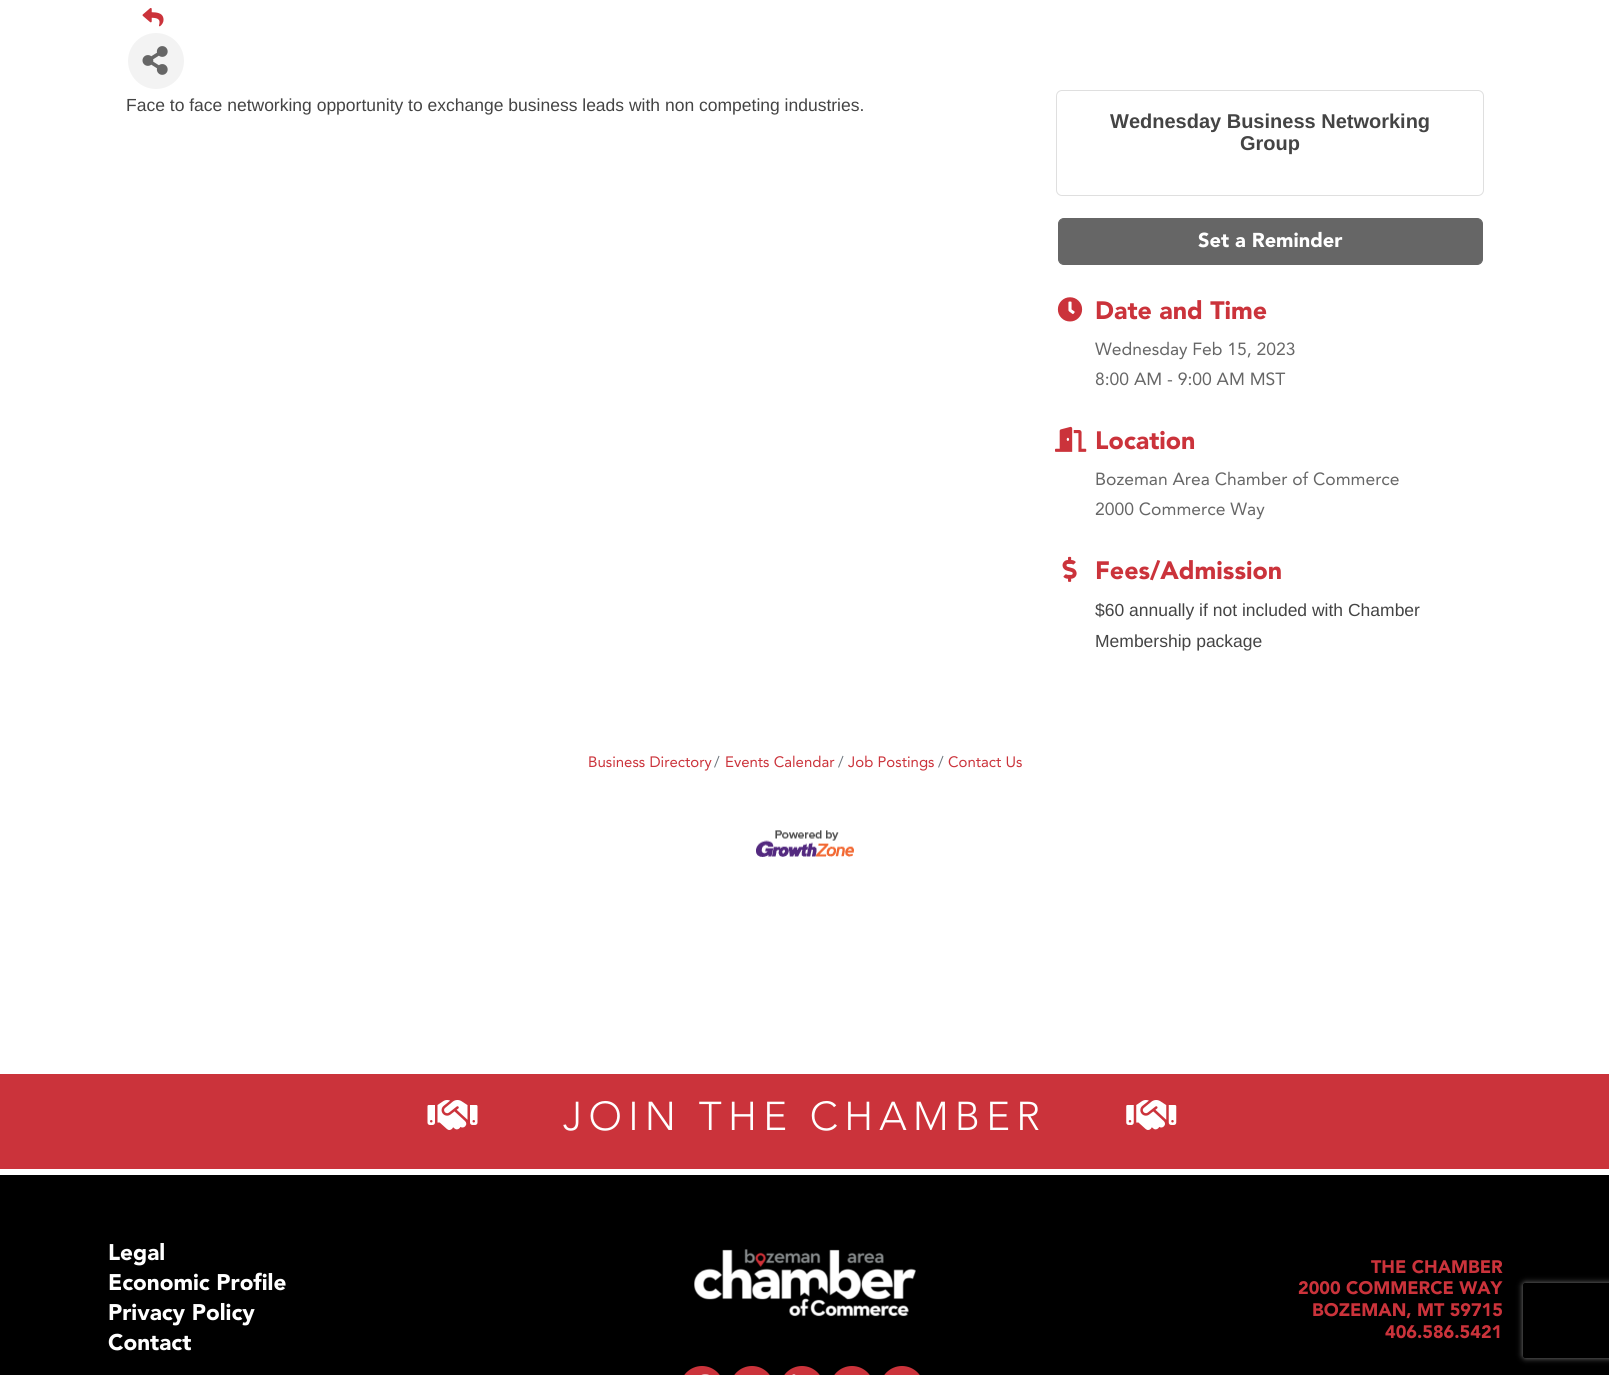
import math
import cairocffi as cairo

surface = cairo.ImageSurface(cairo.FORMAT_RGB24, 1609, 1375)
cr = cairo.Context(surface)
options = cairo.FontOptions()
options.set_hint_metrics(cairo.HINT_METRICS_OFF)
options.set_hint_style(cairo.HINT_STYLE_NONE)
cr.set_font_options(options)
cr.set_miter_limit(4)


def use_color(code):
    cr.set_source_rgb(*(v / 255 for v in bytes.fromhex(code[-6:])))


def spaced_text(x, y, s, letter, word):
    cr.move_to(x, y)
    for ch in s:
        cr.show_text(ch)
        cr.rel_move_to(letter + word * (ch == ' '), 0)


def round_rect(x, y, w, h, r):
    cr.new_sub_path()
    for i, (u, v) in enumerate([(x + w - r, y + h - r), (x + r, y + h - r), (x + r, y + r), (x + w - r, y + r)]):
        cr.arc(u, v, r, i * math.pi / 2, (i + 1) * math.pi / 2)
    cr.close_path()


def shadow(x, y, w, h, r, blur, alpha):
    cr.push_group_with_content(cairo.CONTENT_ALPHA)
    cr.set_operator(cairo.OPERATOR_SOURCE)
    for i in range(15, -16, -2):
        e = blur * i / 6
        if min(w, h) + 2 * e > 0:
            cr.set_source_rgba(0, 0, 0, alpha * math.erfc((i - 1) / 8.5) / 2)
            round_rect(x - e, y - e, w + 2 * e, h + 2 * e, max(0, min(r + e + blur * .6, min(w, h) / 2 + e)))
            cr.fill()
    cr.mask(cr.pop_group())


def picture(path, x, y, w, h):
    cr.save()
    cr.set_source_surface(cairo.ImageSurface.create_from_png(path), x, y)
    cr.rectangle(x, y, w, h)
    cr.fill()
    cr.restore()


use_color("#ffffff")
cr.paint()
picture("img1.png", 142, 8, 22, 19)
use_color("#f3f3f3")
cr.arc(156, 61, 28, 0, 2 * math.pi)
cr.fill()
picture("img2.png", 142, 46, 26, 29)
cr.select_font_face("Liberation Sans")
cr.set_font_size(17.5)
use_color("#444444")
cr.move_to(126, 111)
cr.show_text("Face to face networking opportunity to exchange business leads with non competing industries.")
round_rect(1056.5, 90.5, 427, 105, 5.5)
use_color("#dfdfdf")
cr.set_line_width(1)
cr.stroke()
cr.select_font_face("Liberation Sans", cairo.FONT_SLANT_NORMAL, cairo.FONT_WEIGHT_BOLD)
cr.set_font_size(20)
use_color("#444444")
cr.move_to(1110, 128)
cr.show_text("Wednesday Business Networking")
cr.move_to(1240, 150)
cr.show_text("Group")
use_color("#666666")
round_rect(1058.5, 218.5, 424, 46, 5.5)
cr.fill_preserve()
cr.stroke()
cr.select_font_face("Avenir Black")
use_color("#ffffff")
cr.move_to(1198, 247)
cr.show_text("Set a Reminder")
picture("img3.png", 1057, 297, 26, 25)
cr.set_font_size(25)
use_color("#cb333b")
cr.move_to(1095, 319)
cr.show_text("Date and Time")
cr.select_font_face("Avenir")
cr.set_font_size(17.5)
use_color("#666666")
cr.move_to(1095, 355)
cr.show_text("Wednesday Feb 15, 2023")
cr.move_to(1095, 385)
cr.show_text("8:00 AM - 9:00 AM MST")
picture("img4.png", 1055, 426, 32, 26)
cr.select_font_face("Avenir Black")
cr.set_font_size(25)
use_color("#cb333b")
cr.move_to(1095, 449)
cr.show_text("Location")
cr.select_font_face("Avenir")
cr.set_font_size(17.5)
use_color("#666666")
cr.move_to(1095, 485)
cr.show_text("Bozeman Area Chamber of Commerce")
cr.move_to(1095, 515)
cr.show_text("2000 Commerce Way")
picture("img5.png", 1062, 556, 15, 26)
cr.select_font_face("Avenir Black")
cr.set_font_size(25)
use_color("#cb333b")
cr.move_to(1095, 579)
cr.show_text("Fees/Admission")
cr.select_font_face("Liberation Sans")
cr.set_font_size(17.5)
use_color("#444444")
cr.move_to(1095, 616)
cr.show_text("$60 annually if not included with Chamber")
cr.move_to(1095, 647)
cr.show_text("Membership package")
cr.select_font_face("Avenir")
cr.set_font_size(15)
use_color("#cb333b")
cr.move_to(588, 767)
cr.show_text("Business Directory")
use_color("#6c757d")
cr.move_to(714, 767)
cr.show_text("/")
use_color("#cb333b")
cr.move_to(725, 767)
cr.show_text("Events Calendar")
use_color("#6c757d")
cr.move_to(838, 767)
cr.show_text("/")
use_color("#cb333b")
cr.move_to(848, 767)
cr.show_text("Job Postings")
use_color("#6c757d")
cr.move_to(938, 767)
cr.show_text("/")
use_color("#cb333b")
cr.move_to(948, 767)
cr.show_text("Contact Us")
picture("img6.png", 756, 830, 98, 27)
cr.rectangle(0, 1074, 1609, 95)
cr.fill()
picture("img7.png", 427, 1100, 51, 30)
cr.select_font_face("Avenir Light")
cr.set_font_size(40)
use_color("#ffffff")
spaced_text(563, 1130, "JOIN THE CHAMBER", 6.25, 0)
picture("img8.png", 1126, 1100, 51, 30)
use_color("#000000")
cr.rectangle(0, 1175, 1609, 200)
cr.fill()
cr.select_font_face("Avenir Black")
cr.set_font_size(22.5)
use_color("#ffffff")
cr.move_to(108, 1260)
cr.show_text("Legal")
cr.move_to(108, 1290)
cr.show_text("Economic Profile")
cr.move_to(108, 1320)
cr.show_text("Privacy Policy")
cr.move_to(108, 1350)
cr.show_text("Contact")
picture("img9.png", 694, 1249, 222, 68)
use_color("#cb333b")
round_rect(680, 1366, 44, 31, 22)
cr.fill()
picture("img10.png", 701, 1374, 8, 1)
round_rect(730, 1366, 44, 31, 22)
cr.fill()
round_rect(780, 1366, 44, 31, 22)
cr.fill()
picture("img11.png", 792, 1374, 4, 1)
round_rect(830, 1366, 44, 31, 22)
cr.fill()
round_rect(880, 1366, 44, 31, 22)
cr.fill()
cr.set_font_size(18)
cr.move_to(1371, 1273)
cr.show_text("THE CHAMBER")
cr.move_to(1298, 1294)
cr.show_text("2000 COMMERCE WAY")
cr.move_to(1312, 1316)
cr.show_text("BOZEMAN, MT 59715")
cr.move_to(1385, 1338)
cr.show_text("406.586.5421")
cr.save()
cr.set_fill_rule(cairo.FILL_RULE_EVEN_ODD)
cr.new_path()
cr.move_to(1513, 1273)
cr.line_to(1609, 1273)
cr.line_to(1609, 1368)
cr.line_to(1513, 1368)
cr.close_path()
cr.move_to(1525.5, 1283)
cr.line_to(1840.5, 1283)
cr.curve_to(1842, 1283, 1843, 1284, 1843, 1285.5)
cr.line_to(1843, 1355.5)
cr.curve_to(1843, 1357, 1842, 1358, 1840.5, 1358)
cr.line_to(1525.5, 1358)
cr.curve_to(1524, 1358, 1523, 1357, 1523, 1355.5)
cr.line_to(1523, 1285.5)
cr.curve_to(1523, 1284, 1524, 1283, 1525.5, 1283)
cr.close_path()
cr.clip()
use_color("#808080")
shadow(1523, 1283, 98, 75, 2.5, 3, 1)
cr.restore()
surface.write_to_png("result.png")
